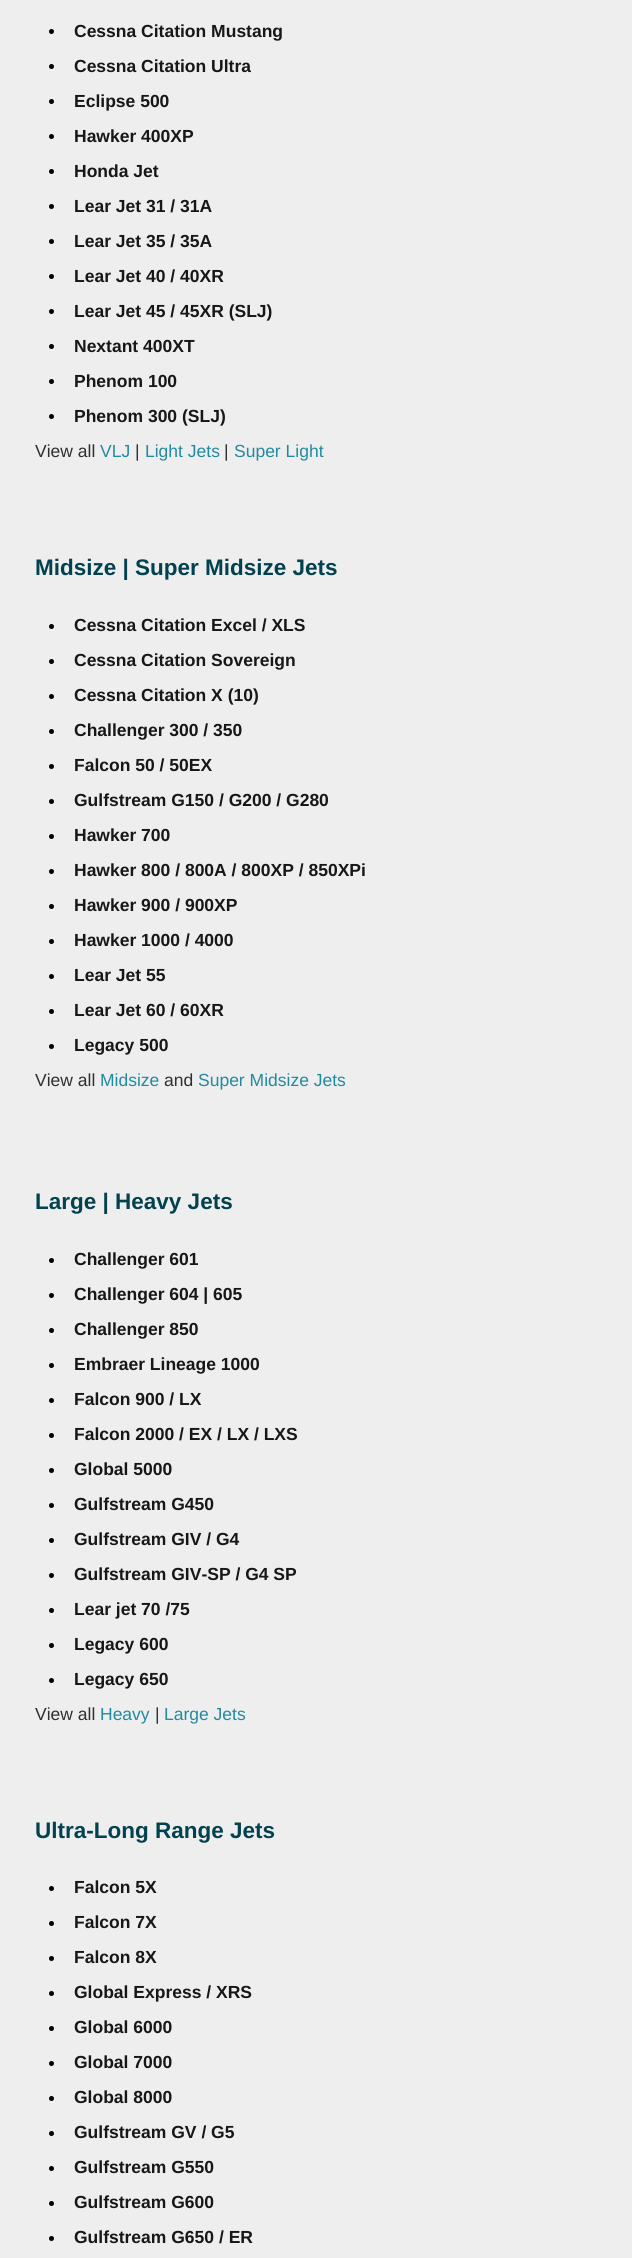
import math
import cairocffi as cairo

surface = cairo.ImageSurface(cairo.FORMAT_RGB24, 632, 2258)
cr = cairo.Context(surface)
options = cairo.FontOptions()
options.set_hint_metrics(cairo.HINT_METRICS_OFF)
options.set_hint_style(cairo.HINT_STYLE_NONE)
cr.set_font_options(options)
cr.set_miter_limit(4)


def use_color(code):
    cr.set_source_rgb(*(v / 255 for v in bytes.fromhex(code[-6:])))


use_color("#eeeeee")
cr.paint()
use_color("#000000")
cr.arc(51.5, 31.5, 2.5, 0, 2 * math.pi)
cr.fill()
cr.select_font_face("Liberation Sans", cairo.FONT_SLANT_NORMAL, cairo.FONT_WEIGHT_BOLD)
cr.set_font_size(17.5)
use_color("#171717")
cr.move_to(74, 37)
cr.show_text("Cessna Citation Mustang")
use_color("#000000")
cr.new_path()
cr.arc(51.5, 66.5, 2.5, 0, 2 * math.pi)
cr.fill()
use_color("#171717")
cr.move_to(74, 72)
cr.show_text("Cessna Citation Ultra")
use_color("#000000")
cr.new_path()
cr.arc(51.5, 101.5, 2.5, 0, 2 * math.pi)
cr.fill()
use_color("#171717")
cr.move_to(74, 107)
cr.show_text("Eclipse 500")
use_color("#000000")
cr.new_path()
cr.arc(51.5, 136.5, 2.5, 0, 2 * math.pi)
cr.fill()
use_color("#171717")
cr.move_to(74, 142)
cr.show_text("Hawker 400XP")
use_color("#000000")
cr.new_path()
cr.arc(51.5, 171.5, 2.5, 0, 2 * math.pi)
cr.fill()
use_color("#171717")
cr.move_to(74, 177)
cr.show_text("Honda Jet")
use_color("#000000")
cr.new_path()
cr.arc(51.5, 206.5, 2.5, 0, 2 * math.pi)
cr.fill()
use_color("#171717")
cr.move_to(74, 212)
cr.show_text("Lear Jet 31 / 31A")
use_color("#000000")
cr.new_path()
cr.arc(51.5, 241.5, 2.5, 0, 2 * math.pi)
cr.fill()
use_color("#171717")
cr.move_to(74, 247)
cr.show_text("Lear Jet 35 / 35A")
use_color("#000000")
cr.new_path()
cr.arc(51.5, 276.5, 2.5, 0, 2 * math.pi)
cr.fill()
use_color("#171717")
cr.move_to(74, 282)
cr.show_text("Lear Jet 40 / 40XR")
use_color("#000000")
cr.new_path()
cr.arc(51.5, 311.5, 2.5, 0, 2 * math.pi)
cr.fill()
use_color("#171717")
cr.move_to(74, 317)
cr.show_text("Lear Jet 45 / 45XR (SLJ)")
use_color("#000000")
cr.new_path()
cr.arc(51.5, 346.5, 2.5, 0, 2 * math.pi)
cr.fill()
use_color("#171717")
cr.move_to(74, 352)
cr.show_text("Nextant 400XT")
use_color("#000000")
cr.new_path()
cr.arc(51.5, 381.5, 2.5, 0, 2 * math.pi)
cr.fill()
use_color("#171717")
cr.move_to(74, 387)
cr.show_text("Phenom 100")
use_color("#000000")
cr.new_path()
cr.arc(51.5, 416.5, 2.5, 0, 2 * math.pi)
cr.fill()
use_color("#171717")
cr.move_to(74, 422)
cr.show_text("Phenom 300 (SLJ)")
cr.select_font_face("Liberation Sans")
use_color("#2f2f2f")
cr.move_to(35, 457)
cr.show_text("View all")
use_color("#228a9f")
cr.move_to(100, 457)
cr.show_text("VLJ")
use_color("#2f2f2f")
cr.move_to(135, 457)
cr.show_text("|")
use_color("#228a9f")
cr.move_to(145, 457)
cr.show_text("Light Jets")
use_color("#2f2f2f")
cr.move_to(224, 457)
cr.show_text("|")
use_color("#228a9f")
cr.move_to(234, 457)
cr.show_text("Super Light")
cr.select_font_face("Liberation Sans", cairo.FONT_SLANT_NORMAL, cairo.FONT_WEIGHT_BOLD)
cr.set_font_size(22.5)
use_color("#02424f")
cr.move_to(35, 575)
cr.show_text("Midsize | Super Midsize Jets")
use_color("#000000")
cr.new_path()
cr.arc(51.5, 626.5, 2.5, 0, 2 * math.pi)
cr.fill()
cr.set_font_size(17.5)
use_color("#171717")
cr.move_to(74, 631)
cr.show_text("Cessna Citation Excel / XLS")
use_color("#000000")
cr.new_path()
cr.arc(51.5, 661.5, 2.5, 0, 2 * math.pi)
cr.fill()
use_color("#171717")
cr.move_to(74, 666)
cr.show_text("Cessna Citation Sovereign")
use_color("#000000")
cr.new_path()
cr.arc(51.5, 696.5, 2.5, 0, 2 * math.pi)
cr.fill()
use_color("#171717")
cr.move_to(74, 701)
cr.show_text("Cessna Citation X (10)")
use_color("#000000")
cr.new_path()
cr.arc(51.5, 731.5, 2.5, 0, 2 * math.pi)
cr.fill()
use_color("#171717")
cr.move_to(74, 736)
cr.show_text("Challenger 300 / 350")
use_color("#000000")
cr.new_path()
cr.arc(51.5, 766.5, 2.5, 0, 2 * math.pi)
cr.fill()
use_color("#171717")
cr.move_to(74, 771)
cr.show_text("Falcon 50 / 50EX")
use_color("#000000")
cr.new_path()
cr.arc(51.5, 801.5, 2.5, 0, 2 * math.pi)
cr.fill()
use_color("#171717")
cr.move_to(74, 806)
cr.show_text("Gulfstream G150 / G200 / G280")
use_color("#000000")
cr.new_path()
cr.arc(51.5, 836.5, 2.5, 0, 2 * math.pi)
cr.fill()
use_color("#171717")
cr.move_to(74, 841)
cr.show_text("Hawker 700")
use_color("#000000")
cr.new_path()
cr.arc(51.5, 871.5, 2.5, 0, 2 * math.pi)
cr.fill()
use_color("#171717")
cr.move_to(74, 876)
cr.show_text("Hawker 800 / 800A / 800XP / 850XPi")
use_color("#000000")
cr.new_path()
cr.arc(51.5, 906.5, 2.5, 0, 2 * math.pi)
cr.fill()
use_color("#171717")
cr.move_to(74, 911)
cr.show_text("Hawker 900 / 900XP")
use_color("#000000")
cr.new_path()
cr.arc(51.5, 941.5, 2.5, 0, 2 * math.pi)
cr.fill()
use_color("#171717")
cr.move_to(74, 946)
cr.show_text("Hawker 1000 / 4000")
use_color("#000000")
cr.new_path()
cr.arc(51.5, 976.5, 2.5, 0, 2 * math.pi)
cr.fill()
use_color("#171717")
cr.move_to(74, 981)
cr.show_text("Lear Jet 55")
use_color("#000000")
cr.new_path()
cr.arc(51.5, 1011.5, 2.5, 0, 2 * math.pi)
cr.fill()
use_color("#171717")
cr.move_to(74, 1016)
cr.show_text("Lear Jet 60 / 60XR")
use_color("#000000")
cr.new_path()
cr.arc(51.5, 1046.5, 2.5, 0, 2 * math.pi)
cr.fill()
use_color("#171717")
cr.move_to(74, 1051)
cr.show_text("Legacy 500")
cr.select_font_face("Liberation Sans")
use_color("#2f2f2f")
cr.move_to(35, 1086)
cr.show_text("View all")
use_color("#228a9f")
cr.move_to(100, 1086)
cr.show_text("Midsize")
use_color("#2f2f2f")
cr.move_to(164, 1086)
cr.show_text("and")
use_color("#228a9f")
cr.move_to(198, 1086)
cr.show_text("Super Midsize Jets")
cr.select_font_face("Liberation Sans", cairo.FONT_SLANT_NORMAL, cairo.FONT_WEIGHT_BOLD)
cr.set_font_size(22.5)
use_color("#02424f")
cr.move_to(35, 1209)
cr.show_text("Large | Heavy Jets")
use_color("#000000")
cr.new_path()
cr.arc(51.5, 1260.5, 2.5, 0, 2 * math.pi)
cr.fill()
cr.set_font_size(17.5)
use_color("#171717")
cr.move_to(74, 1265)
cr.show_text("Challenger 601")
use_color("#000000")
cr.new_path()
cr.arc(51.5, 1295.5, 2.5, 0, 2 * math.pi)
cr.fill()
use_color("#171717")
cr.move_to(74, 1300)
cr.show_text("Challenger 604 | 605")
use_color("#000000")
cr.new_path()
cr.arc(51.5, 1330.5, 2.5, 0, 2 * math.pi)
cr.fill()
use_color("#171717")
cr.move_to(74, 1335)
cr.show_text("Challenger 850")
use_color("#000000")
cr.new_path()
cr.arc(51.5, 1365.5, 2.5, 0, 2 * math.pi)
cr.fill()
use_color("#171717")
cr.move_to(74, 1370)
cr.show_text("Embraer Lineage 1000")
use_color("#000000")
cr.new_path()
cr.arc(51.5, 1400.5, 2.5, 0, 2 * math.pi)
cr.fill()
use_color("#171717")
cr.move_to(74, 1405)
cr.show_text("Falcon 900 / LX")
use_color("#000000")
cr.new_path()
cr.arc(51.5, 1435.5, 2.5, 0, 2 * math.pi)
cr.fill()
use_color("#171717")
cr.move_to(74, 1440)
cr.show_text("Falcon 2000 / EX / LX / LXS")
use_color("#000000")
cr.new_path()
cr.arc(51.5, 1470.5, 2.5, 0, 2 * math.pi)
cr.fill()
use_color("#171717")
cr.move_to(74, 1475)
cr.show_text("Global 5000")
use_color("#000000")
cr.new_path()
cr.arc(51.5, 1505.5, 2.5, 0, 2 * math.pi)
cr.fill()
use_color("#171717")
cr.move_to(74, 1510)
cr.show_text("Gulfstream G450")
use_color("#000000")
cr.new_path()
cr.arc(51.5, 1540.5, 2.5, 0, 2 * math.pi)
cr.fill()
use_color("#171717")
cr.move_to(74, 1545)
cr.show_text("Gulfstream GIV / G4")
use_color("#000000")
cr.new_path()
cr.arc(51.5, 1575.5, 2.5, 0, 2 * math.pi)
cr.fill()
use_color("#171717")
cr.move_to(74, 1580)
cr.show_text("Gulfstream GIV-SP / G4 SP")
use_color("#000000")
cr.new_path()
cr.arc(51.5, 1610.5, 2.5, 0, 2 * math.pi)
cr.fill()
use_color("#171717")
cr.move_to(74, 1615)
cr.show_text("Lear jet 70 /75")
use_color("#000000")
cr.new_path()
cr.arc(51.5, 1645.5, 2.5, 0, 2 * math.pi)
cr.fill()
use_color("#171717")
cr.move_to(74, 1650)
cr.show_text("Legacy 600")
use_color("#000000")
cr.new_path()
cr.arc(51.5, 1680.5, 2.5, 0, 2 * math.pi)
cr.fill()
use_color("#171717")
cr.move_to(74, 1685)
cr.show_text("Legacy 650")
cr.select_font_face("Liberation Sans")
use_color("#2f2f2f")
cr.move_to(35, 1720)
cr.show_text("View all")
use_color("#228a9f")
cr.move_to(100, 1720)
cr.show_text("Heavy")
use_color("#2f2f2f")
cr.move_to(155, 1720)
cr.show_text("|")
use_color("#228a9f")
cr.move_to(164, 1720)
cr.show_text("Large Jets")
cr.select_font_face("Liberation Sans", cairo.FONT_SLANT_NORMAL, cairo.FONT_WEIGHT_BOLD)
cr.set_font_size(22.5)
use_color("#02424f")
cr.move_to(35, 1838)
cr.show_text("Ultra-Long Range Jets")
use_color("#000000")
cr.new_path()
cr.arc(51.5, 1888.5, 2.5, 0, 2 * math.pi)
cr.fill()
cr.set_font_size(17.5)
use_color("#171717")
cr.move_to(74, 1893)
cr.show_text("Falcon 5X")
use_color("#000000")
cr.new_path()
cr.arc(51.5, 1923.5, 2.5, 0, 2 * math.pi)
cr.fill()
use_color("#171717")
cr.move_to(74, 1928)
cr.show_text("Falcon 7X")
use_color("#000000")
cr.new_path()
cr.arc(51.5, 1958.5, 2.5, 0, 2 * math.pi)
cr.fill()
use_color("#171717")
cr.move_to(74, 1963)
cr.show_text("Falcon 8X")
use_color("#000000")
cr.new_path()
cr.arc(51.5, 1993.5, 2.5, 0, 2 * math.pi)
cr.fill()
use_color("#171717")
cr.move_to(74, 1998)
cr.show_text("Global Express / XRS")
use_color("#000000")
cr.new_path()
cr.arc(51.5, 2028.5, 2.5, 0, 2 * math.pi)
cr.fill()
use_color("#171717")
cr.move_to(74, 2033)
cr.show_text("Global 6000")
use_color("#000000")
cr.new_path()
cr.arc(51.5, 2063.5, 2.5, 0, 2 * math.pi)
cr.fill()
use_color("#171717")
cr.move_to(74, 2068)
cr.show_text("Global 7000")
use_color("#000000")
cr.new_path()
cr.arc(51.5, 2098.5, 2.5, 0, 2 * math.pi)
cr.fill()
use_color("#171717")
cr.move_to(74, 2103)
cr.show_text("Global 8000")
use_color("#000000")
cr.new_path()
cr.arc(51.5, 2133.5, 2.5, 0, 2 * math.pi)
cr.fill()
use_color("#171717")
cr.move_to(74, 2138)
cr.show_text("Gulfstream GV / G5")
use_color("#000000")
cr.new_path()
cr.arc(51.5, 2168.5, 2.5, 0, 2 * math.pi)
cr.fill()
use_color("#171717")
cr.move_to(74, 2173)
cr.show_text("Gulfstream G550")
use_color("#000000")
cr.new_path()
cr.arc(51.5, 2203.5, 2.5, 0, 2 * math.pi)
cr.fill()
use_color("#171717")
cr.move_to(74, 2208)
cr.show_text("Gulfstream G600")
use_color("#000000")
cr.new_path()
cr.arc(51.5, 2238.5, 2.5, 0, 2 * math.pi)
cr.fill()
use_color("#171717")
cr.move_to(74, 2243)
cr.show_text("Gulfstream G650 / ER")
surface.write_to_png("result.png")
